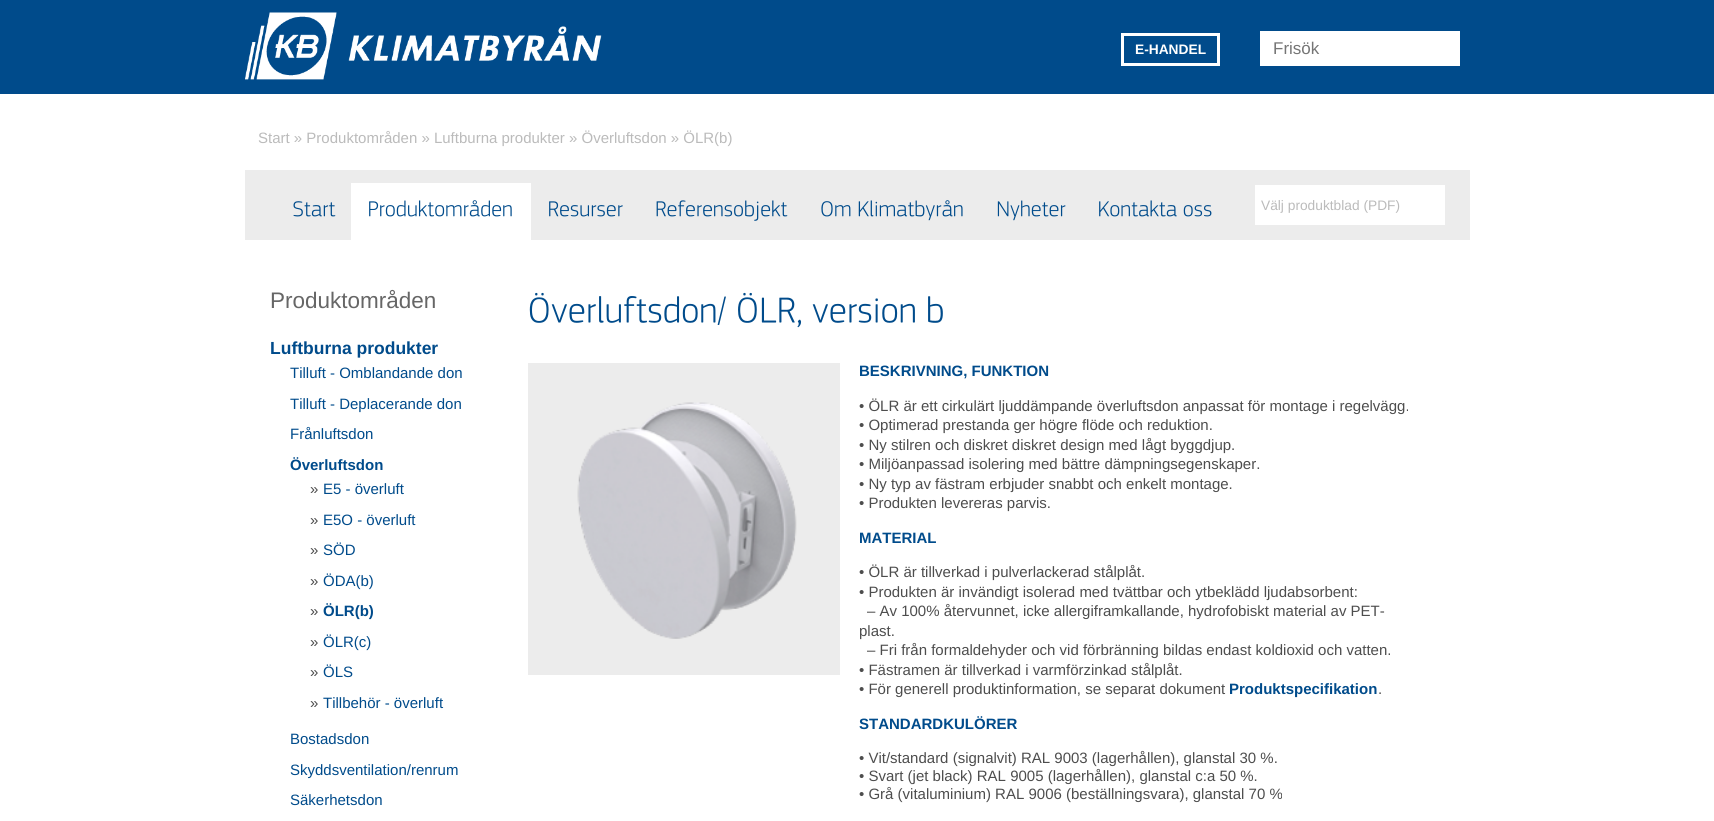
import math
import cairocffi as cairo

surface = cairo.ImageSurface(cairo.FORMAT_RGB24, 1714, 821)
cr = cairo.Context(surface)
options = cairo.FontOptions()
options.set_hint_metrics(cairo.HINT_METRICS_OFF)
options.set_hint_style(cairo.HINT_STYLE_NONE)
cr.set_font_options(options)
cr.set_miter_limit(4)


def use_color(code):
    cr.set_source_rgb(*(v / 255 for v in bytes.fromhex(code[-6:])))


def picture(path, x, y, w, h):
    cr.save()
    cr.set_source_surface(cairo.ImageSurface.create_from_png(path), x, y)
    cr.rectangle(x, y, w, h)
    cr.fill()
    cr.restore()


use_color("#ffffff")
cr.paint()
use_color("#004b8b")
cr.rectangle(0, 0, 1714, 94)
cr.fill()
picture("img1.png", 245, 12, 357, 68)
cr.rectangle(1122.5, 34.5, 96, 30)
use_color("#ffffff")
cr.set_line_width(3)
cr.stroke()
cr.select_font_face("Liberation Sans", cairo.FONT_SLANT_NORMAL, cairo.FONT_WEIGHT_BOLD)
cr.set_font_size(13.75)
cr.move_to(1135, 54)
cr.show_text("E-HANDEL")
cr.rectangle(1260, 31, 200, 35)
cr.fill()
cr.select_font_face("Liberation Sans")
cr.set_font_size(17)
use_color("#757575")
cr.move_to(1273, 54)
cr.show_text("Frisök")
cr.set_font_size(15)
use_color("#bbbbbb")
cr.move_to(258, 143)
cr.show_text("Start » Produktområden » Luftburna produkter » Överluftsdon » ÖLR(b)")
use_color("#ececec")
cr.rectangle(245, 170, 1225, 70)
cr.fill()
picture("img2.png", 293, 201, 43, 16)
use_color("#ffffff")
cr.rectangle(351, 183, 180, 57)
cr.fill()
picture("img3.png", 369, 200, 143, 17)
picture("img4.png", 549, 201, 74, 16)
picture("img5.png", 656, 200, 132, 21)
picture("img6.png", 821, 200, 142, 21)
picture("img7.png", 997, 200, 69, 21)
picture("img8.png", 1099, 200, 113, 17)
cr.rectangle(1255, 185, 190, 40)
cr.fill()
cr.set_font_size(13.75)
use_color("#bbbbbb")
cr.move_to(1261, 210)
cr.show_text("Välj produktblad (PDF)")
cr.set_font_size(22.5)
use_color("#666666")
cr.move_to(270, 308)
cr.show_text("Produktområden")
cr.select_font_face("Liberation Sans", cairo.FONT_SLANT_NORMAL, cairo.FONT_WEIGHT_BOLD)
cr.set_font_size(17.5)
use_color("#004b8b")
cr.move_to(270, 354)
cr.show_text("Luftburna produkter")
cr.select_font_face("Liberation Sans")
cr.set_font_size(15)
cr.move_to(290, 378)
cr.show_text("Tilluft - Omblandande don")
cr.move_to(290, 409)
cr.show_text("Tilluft - Deplacerande don")
cr.move_to(290, 439)
cr.show_text("Frånluftsdon")
cr.select_font_face("Liberation Sans", cairo.FONT_SLANT_NORMAL, cairo.FONT_WEIGHT_BOLD)
cr.move_to(290, 470)
cr.show_text("Överluftsdon")
cr.select_font_face("Liberation Sans")
use_color("#4d4d4d")
cr.move_to(310, 494)
cr.show_text("»")
use_color("#004b8b")
cr.move_to(323, 494)
cr.show_text("E5 - överluft")
use_color("#4d4d4d")
cr.move_to(310, 525)
cr.show_text("»")
use_color("#004b8b")
cr.move_to(323, 525)
cr.show_text("E5O - överluft")
use_color("#4d4d4d")
cr.move_to(310, 555)
cr.show_text("»")
use_color("#004b8b")
cr.move_to(323, 555)
cr.show_text("SÖD")
use_color("#4d4d4d")
cr.move_to(310, 586)
cr.show_text("»")
use_color("#004b8b")
cr.move_to(323, 586)
cr.show_text("ÖDA(b)")
use_color("#4d4d4d")
cr.move_to(310, 616)
cr.show_text("»")
cr.select_font_face("Liberation Sans", cairo.FONT_SLANT_NORMAL, cairo.FONT_WEIGHT_BOLD)
use_color("#004b8b")
cr.move_to(323, 616)
cr.show_text("ÖLR(b)")
cr.select_font_face("Liberation Sans")
use_color("#4d4d4d")
cr.move_to(310, 647)
cr.show_text("»")
use_color("#004b8b")
cr.move_to(323, 647)
cr.show_text("ÖLR(c)")
use_color("#4d4d4d")
cr.move_to(310, 677)
cr.show_text("»")
use_color("#004b8b")
cr.move_to(323, 677)
cr.show_text("ÖLS")
use_color("#4d4d4d")
cr.move_to(310, 708)
cr.show_text("»")
use_color("#004b8b")
cr.move_to(323, 708)
cr.show_text("Tillbehör - överluft")
cr.move_to(290, 744)
cr.show_text("Bostadsdon")
cr.move_to(290, 775)
cr.show_text("Skyddsventilation/renrum")
cr.move_to(290, 805)
cr.show_text("Säkerhetsdon")
picture("img9.png", 529, 292, 414, 36)
use_color("#ececec")
cr.rectangle(528, 363, 312, 312)
cr.fill()
picture("img10.png", 577, 402, 220, 237)
cr.select_font_face("Liberation Sans", cairo.FONT_SLANT_NORMAL, cairo.FONT_WEIGHT_BOLD)
use_color("#004b8b")
cr.move_to(859, 376)
cr.show_text("BESKRIVNING, FUNKTION")
cr.select_font_face("Liberation Sans")
use_color("#4d4d4d")
cr.move_to(859, 411)
cr.show_text("• ÖLR är ett cirkulärt ljuddämpande överluftsdon anpassat för montage i regelvägg.")
cr.move_to(859, 430)
cr.show_text("• Optimerad prestanda ger högre flöde och reduktion.")
cr.move_to(859, 450)
cr.show_text("• Ny stilren och diskret diskret design med lågt byggdjup.")
cr.move_to(859, 469)
cr.show_text("• Miljöanpassad isolering med bättre dämpningsegenskaper.")
cr.move_to(859, 489)
cr.show_text("• Ny typ av fästram erbjuder snabbt och enkelt montage.")
cr.move_to(859, 508)
cr.show_text("• Produkten levereras parvis.")
cr.select_font_face("Liberation Sans", cairo.FONT_SLANT_NORMAL, cairo.FONT_WEIGHT_BOLD)
use_color("#004b8b")
cr.move_to(859, 543)
cr.show_text("MATERIAL")
cr.select_font_face("Liberation Sans")
use_color("#4d4d4d")
cr.move_to(859, 577)
cr.show_text("• ÖLR är tillverkad i pulverlackerad stålplåt.")
cr.move_to(859, 597)
cr.show_text("• Produkten är invändigt isolerad med tvättbar och ytbeklädd ljudabsorbent:")
cr.move_to(867, 616)
cr.show_text("– Av 100% återvunnet, icke allergiframkallande, hydrofobiskt material av PET-")
cr.move_to(859, 636)
cr.show_text("plast.")
cr.move_to(867, 655)
cr.show_text("– Fri från formaldehyder och vid förbränning bildas endast koldioxid och vatten.")
cr.move_to(859, 675)
cr.show_text("• Fästramen är tillverkad i varmförzinkad stålplåt.")
cr.move_to(859, 694)
cr.show_text("• För generell produktinformation, se separat dokument")
cr.select_font_face("Liberation Sans", cairo.FONT_SLANT_NORMAL, cairo.FONT_WEIGHT_BOLD)
use_color("#004b8b")
cr.move_to(1229, 694)
cr.show_text("Produktspecifikation")
cr.select_font_face("Liberation Sans")
use_color("#4d4d4d")
cr.move_to(1378, 694)
cr.show_text(".")
cr.select_font_face("Liberation Sans", cairo.FONT_SLANT_NORMAL, cairo.FONT_WEIGHT_BOLD)
use_color("#004b8b")
cr.move_to(859, 729)
cr.show_text("STANDARDKULÖRER")
cr.select_font_face("Liberation Sans")
use_color("#4d4d4d")
cr.move_to(859, 763)
cr.show_text("• Vit/standard (signalvit) RAL 9003 (lagerhållen), glanstal 30 %.")
cr.move_to(859, 781)
cr.show_text("• Svart (jet black) RAL 9005 (lagerhållen), glanstal c:a 50 %.")
cr.move_to(859, 799)
cr.show_text("• Grå (vitaluminium) RAL 9006 (beställningsvara), glanstal 70 %")
surface.write_to_png("result.png")
